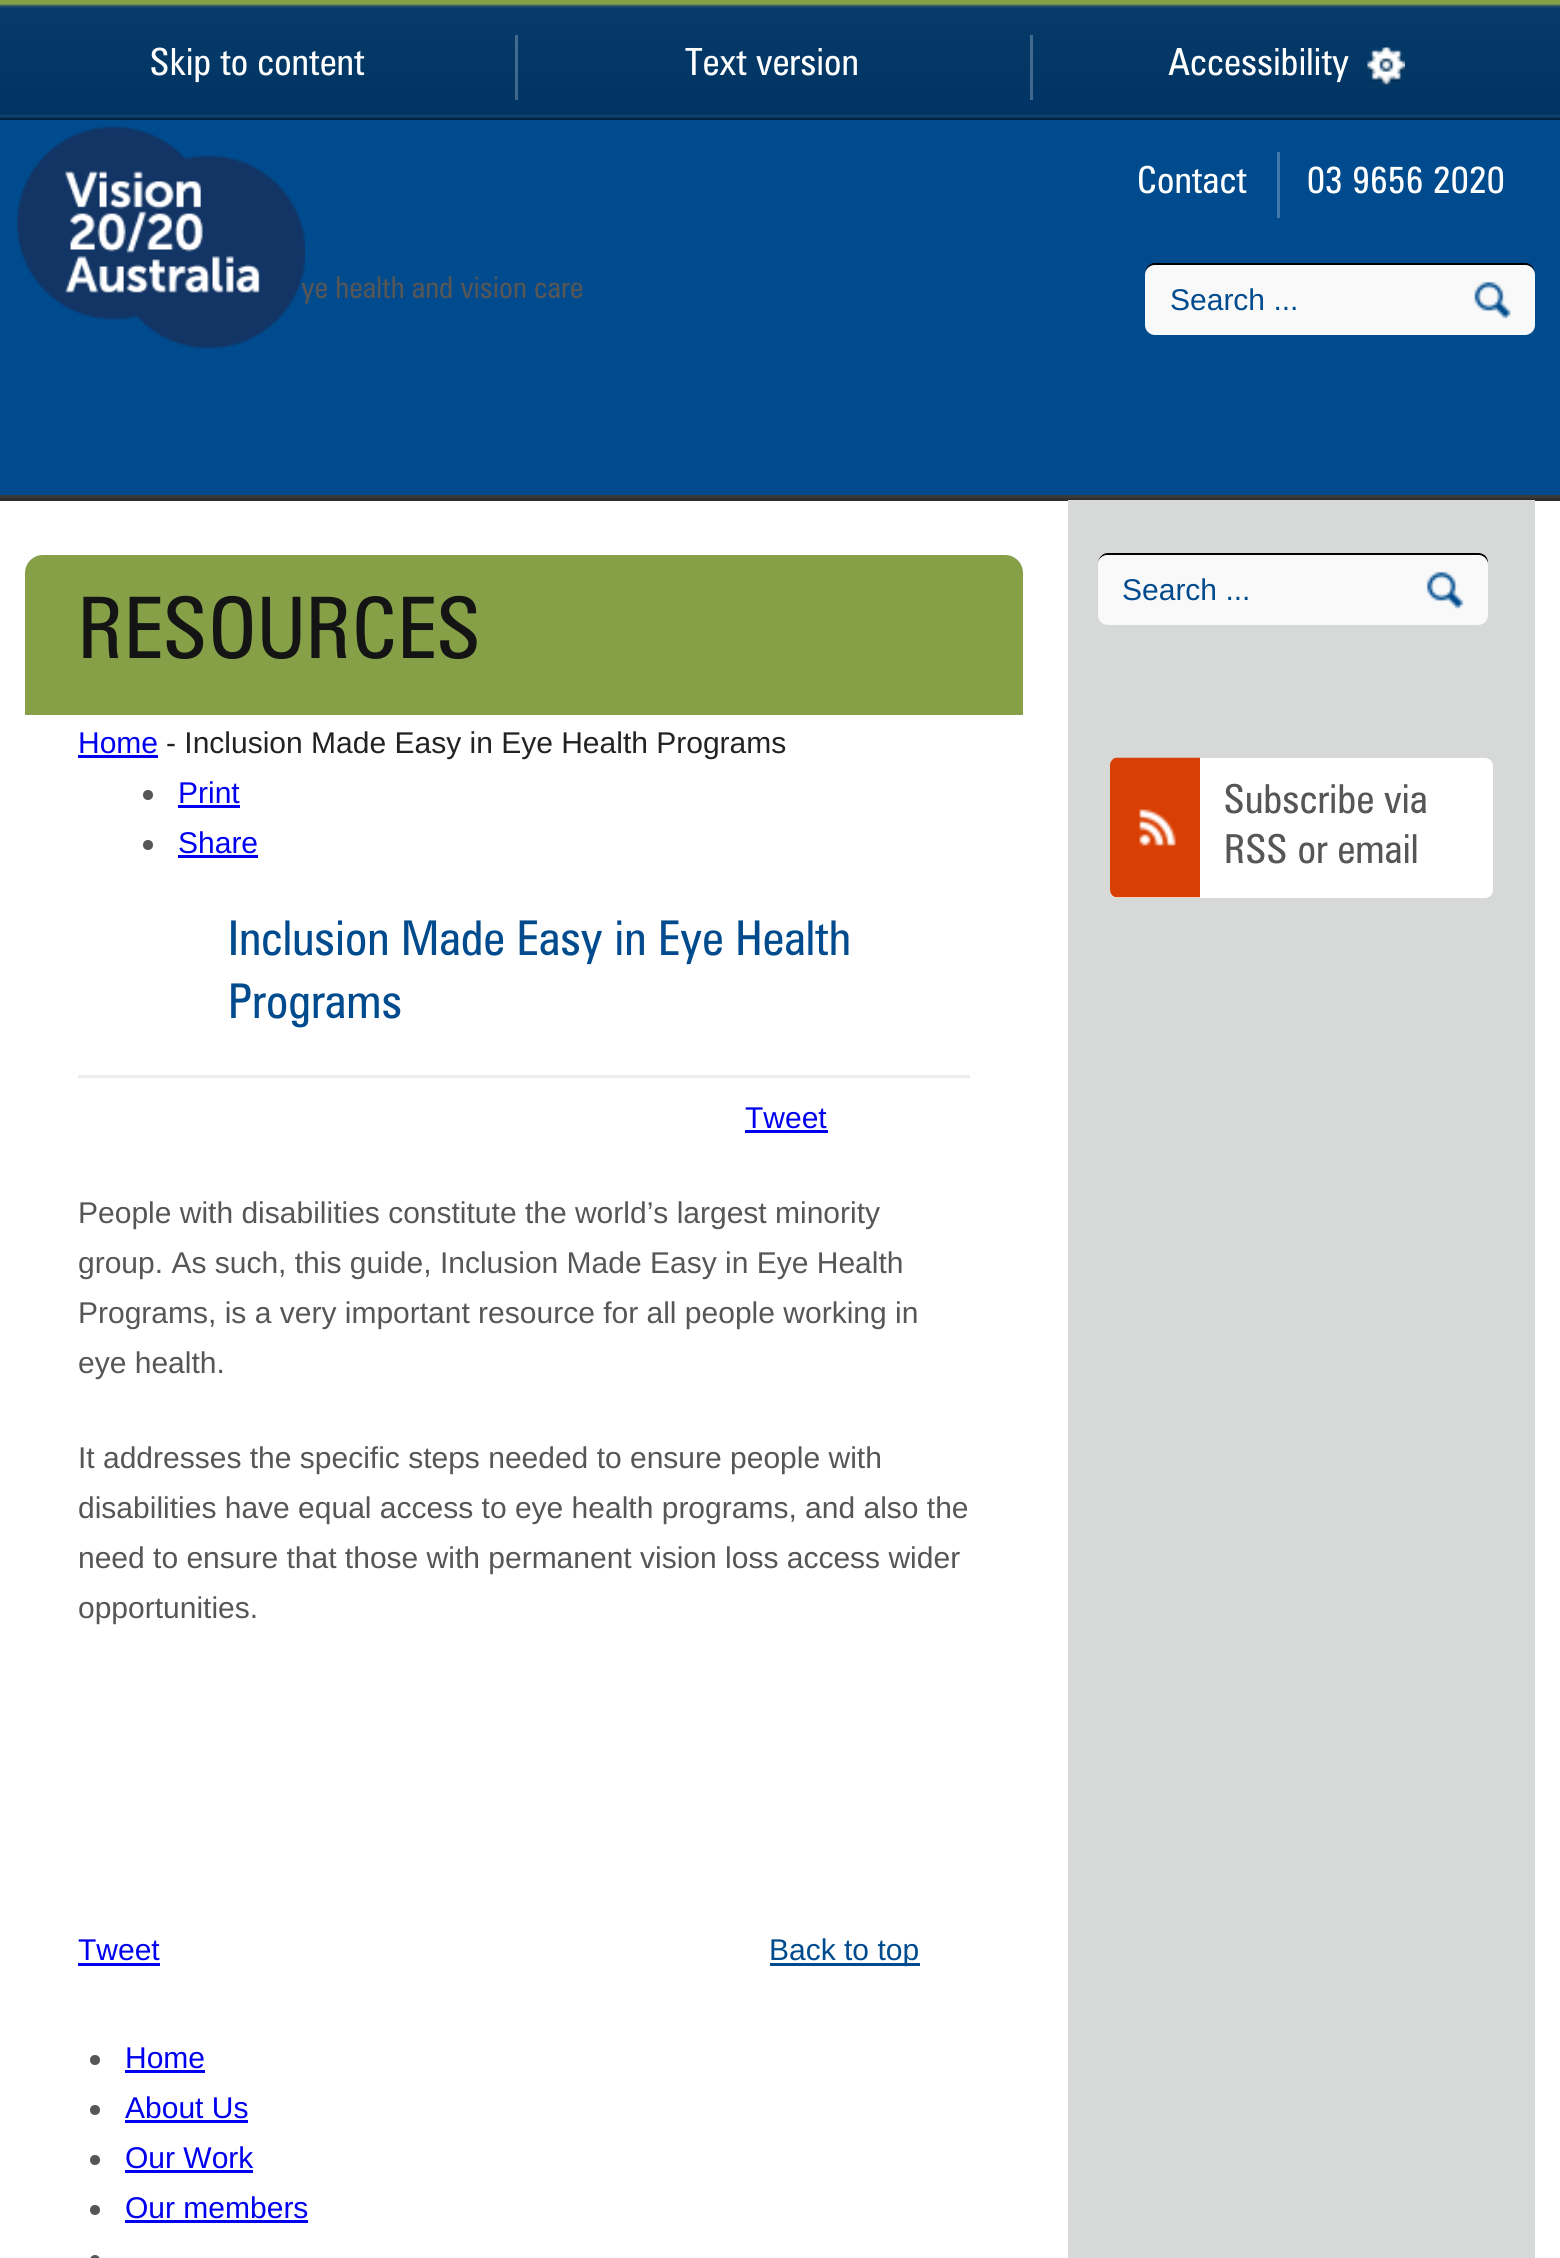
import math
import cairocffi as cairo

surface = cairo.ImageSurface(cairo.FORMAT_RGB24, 1560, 2258)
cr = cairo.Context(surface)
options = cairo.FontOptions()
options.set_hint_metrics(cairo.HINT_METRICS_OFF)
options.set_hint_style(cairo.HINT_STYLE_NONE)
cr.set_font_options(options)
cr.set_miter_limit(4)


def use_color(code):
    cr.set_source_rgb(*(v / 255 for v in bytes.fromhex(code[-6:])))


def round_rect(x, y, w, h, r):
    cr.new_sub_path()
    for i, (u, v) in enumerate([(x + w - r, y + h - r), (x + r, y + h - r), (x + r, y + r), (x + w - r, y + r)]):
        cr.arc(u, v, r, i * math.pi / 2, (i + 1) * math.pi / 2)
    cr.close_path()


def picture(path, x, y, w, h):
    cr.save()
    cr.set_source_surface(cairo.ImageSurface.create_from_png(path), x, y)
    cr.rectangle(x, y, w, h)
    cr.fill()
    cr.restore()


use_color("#ffffff")
cr.paint()
use_color("#004b8d")
cr.rectangle(0, 120, 1560, 375)
cr.fill()
picture("img1.png", 0, 0, 1560, 120)
cr.select_font_face("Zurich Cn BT")
cr.set_font_size(37.5)
use_color("#ffffff")
cr.move_to(150, 75)
cr.show_text("Skip to content")
cr.set_source_rgba(1, 1, 1, 0.25)
cr.rectangle(515, 35, 3, 65)
cr.fill()
use_color("#ffffff")
cr.move_to(685, 75)
cr.show_text("Text version")
cr.set_source_rgba(1, 1, 1, 0.25)
cr.rectangle(1030, 35, 3, 65)
cr.fill()
use_color("#ffffff")
cr.move_to(1168, 75)
cr.show_text("Accessibility")
picture("img2.png", 1367, 47, 38, 38)
cr.set_font_size(30)
use_color("#565656")
cr.move_to(301, 298)
cr.show_text("ye health and vision care")
picture("img3.png", 17, 126, 288, 223)
cr.set_font_size(37.5)
use_color("#ffffff")
cr.move_to(1137, 193)
cr.show_text("Contact")
use_color("#4078aa")
cr.rectangle(1277, 152, 3, 66)
cr.fill()
use_color("#ffffff")
cr.move_to(1307, 193)
cr.show_text("03 9656 2020")
use_color("#000000")
cr.new_path()
cr.move_to(1155, 263)
cr.curve_to(1148, 263, 1145, 269, 1145, 275)
cr.curve_to(1145, 269, 1149, 265, 1155, 265)
cr.line_to(1525, 265)
cr.curve_to(1531, 265, 1535, 269, 1535, 275)
cr.curve_to(1535, 269, 1532, 263, 1525, 263)
cr.close_path()
cr.fill()
use_color("#f9f9f9")
round_rect(1145, 265, 390, 70, 10)
cr.fill()
cr.select_font_face("Liberation Sans")
cr.set_font_size(30)
use_color("#004b8d")
cr.move_to(1170, 310)
cr.show_text("Search ...")
picture("img4.png", 1474, 281, 37, 38)
use_color("#393939")
cr.rectangle(0, 495, 1560, 3)
cr.fill()
use_color("#2e2e2e")
cr.rectangle(0, 498, 1560, 3)
cr.fill()
use_color("#85a047")
cr.new_path()
cr.move_to(43, 555)
cr.line_to(1005, 555)
cr.curve_to(1015, 555, 1023, 563, 1023, 573)
cr.line_to(1023, 715)
cr.line_to(25, 715)
cr.line_to(25, 573)
cr.curve_to(25, 563, 33, 555, 43, 555)
cr.close_path()
cr.fill()
cr.select_font_face("Zurich Cn BT")
cr.set_font_size(85)
use_color("#141414")
cr.move_to(78, 658)
cr.show_text("RESOURCES")
cr.select_font_face("Liberation Sans")
cr.set_font_size(30)
use_color("#0000ee")
cr.move_to(78, 753)
cr.show_text("Home")
cr.rectangle(78, 755, 80, 3)
cr.fill()
use_color("#222222")
cr.move_to(166, 753)
cr.show_text("- Inclusion Made Easy in Eye Health Programs")
use_color("#565656")
cr.new_path()
cr.arc(148, 795, 5, 0, 2 * math.pi)
cr.fill()
use_color("#0000ee")
cr.move_to(178, 803)
cr.show_text("Print")
cr.rectangle(178, 805, 62, 3)
cr.fill()
use_color("#565656")
cr.arc(148, 845, 5, 0, 2 * math.pi)
cr.fill()
use_color("#0000ee")
cr.move_to(178, 853)
cr.show_text("Share")
cr.rectangle(178, 855, 80, 3)
cr.fill()
use_color("#ededed")
cr.rectangle(78, 1075, 892, 3)
cr.fill()
cr.select_font_face("Zurich Cn BT")
cr.set_font_size(48)
use_color("#004b8d")
cr.move_to(228, 955)
cr.show_text("Inclusion Made Easy in Eye Health")
cr.move_to(228, 1018)
cr.show_text("Programs")
cr.select_font_face("Liberation Sans")
cr.set_font_size(30)
use_color("#0000ee")
cr.move_to(745, 1128)
cr.show_text("Tweet")
cr.rectangle(745, 1130, 83, 3)
cr.fill()
use_color("#565656")
cr.move_to(78, 1223)
cr.show_text("People with disabilities constitute the world’s largest minority")
cr.move_to(78, 1273)
cr.show_text("group. As such, this guide, Inclusion Made Easy in Eye Health")
cr.move_to(78, 1323)
cr.show_text("Programs, is a very important resource for all people working in")
cr.move_to(78, 1373)
cr.show_text("eye health.")
cr.move_to(78, 1468)
cr.show_text("It addresses the specific steps needed to ensure people with")
cr.move_to(78, 1518)
cr.show_text("disabilities have equal access to eye health programs, and also the")
cr.move_to(78, 1568)
cr.show_text("need to ensure that those with permanent vision loss access wider")
cr.move_to(78, 1618)
cr.show_text("opportunities.")
use_color("#0000ee")
cr.move_to(78, 1960)
cr.show_text("Tweet")
cr.rectangle(78, 1963, 82, 3)
cr.fill()
use_color("#004b8d")
cr.rectangle(770, 1963, 150, 3)
cr.fill()
cr.move_to(769, 1960)
cr.show_text("Back to top")
use_color("#d7d8d8")
cr.rectangle(1068, 500, 467, 443)
cr.fill()
use_color("#000000")
cr.new_path()
cr.move_to(1108, 553)
cr.curve_to(1103, 553, 1099, 557, 1098, 562)
cr.curve_to(1099, 558, 1103, 555, 1108, 555)
cr.line_to(1478, 555)
cr.curve_to(1483, 555, 1488, 559, 1488, 565)
cr.line_to(1487, 616)
cr.line_to(1488, 613)
cr.line_to(1488, 563)
cr.curve_to(1488, 557, 1484, 553, 1478, 553)
cr.close_path()
cr.fill()
use_color("#f9f9f9")
round_rect(1098, 555, 390, 70, 10)
cr.fill()
use_color("#004b8d")
cr.move_to(1122, 600)
cr.show_text("Search ...")
picture("img5.png", 1426, 571, 38, 38)
use_color("#ffffff")
round_rect(1110, 758, 383, 140, 8)
cr.fill()
picture("img6.png", 1110, 757, 90, 141)
cr.select_font_face("Zurich Cn BT")
cr.set_font_size(40)
use_color("#565656")
cr.move_to(1224, 813)
cr.show_text("Subscribe via")
cr.move_to(1224, 863)
cr.show_text("RSS or email")
use_color("#d7d8d8")
cr.rectangle(1068, 943, 467, 1315)
cr.fill()
use_color("#565656")
cr.arc(95, 2060, 5, 0, 2 * math.pi)
cr.fill()
cr.select_font_face("Liberation Sans")
cr.set_font_size(30)
use_color("#0000ee")
cr.move_to(125, 2068)
cr.show_text("Home")
cr.rectangle(125, 2070, 80, 3)
cr.fill()
use_color("#565656")
cr.arc(95, 2110, 5, 0, 2 * math.pi)
cr.fill()
use_color("#0000ee")
cr.move_to(125, 2118)
cr.show_text("About Us")
cr.rectangle(125, 2120, 123, 3)
cr.fill()
use_color("#565656")
cr.arc(95, 2160, 5, 0, 2 * math.pi)
cr.fill()
use_color("#0000ee")
cr.move_to(125, 2168)
cr.show_text("Our Work")
cr.rectangle(125, 2170, 128, 3)
cr.fill()
use_color("#565656")
cr.arc(95, 2210, 5, 0, 2 * math.pi)
cr.fill()
use_color("#0000ee")
cr.move_to(125, 2218)
cr.show_text("Our members")
cr.rectangle(125, 2220, 183, 3)
cr.fill()
use_color("#565656")
round_rect(90, 2255, 10, 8, 5)
cr.fill()
surface.write_to_png("result.png")
